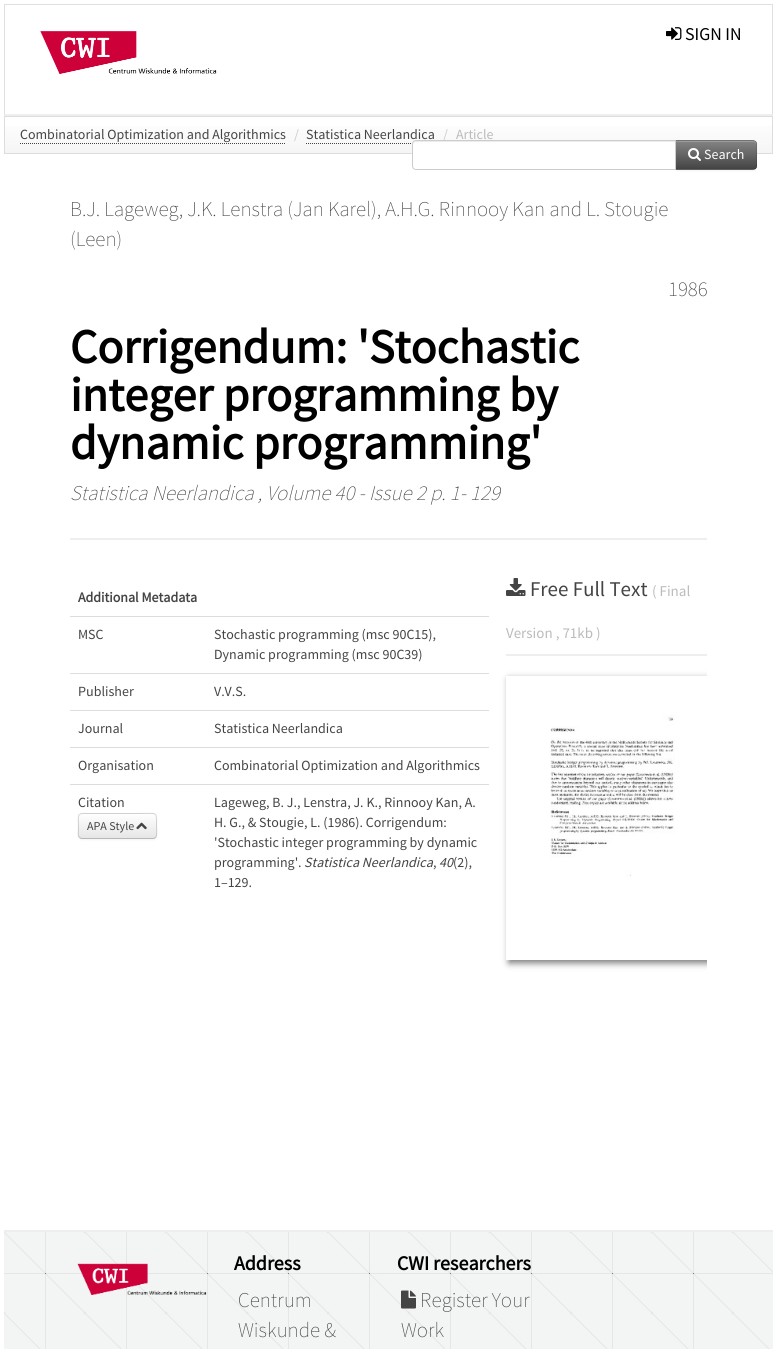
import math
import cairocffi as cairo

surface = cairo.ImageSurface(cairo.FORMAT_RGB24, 777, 1349)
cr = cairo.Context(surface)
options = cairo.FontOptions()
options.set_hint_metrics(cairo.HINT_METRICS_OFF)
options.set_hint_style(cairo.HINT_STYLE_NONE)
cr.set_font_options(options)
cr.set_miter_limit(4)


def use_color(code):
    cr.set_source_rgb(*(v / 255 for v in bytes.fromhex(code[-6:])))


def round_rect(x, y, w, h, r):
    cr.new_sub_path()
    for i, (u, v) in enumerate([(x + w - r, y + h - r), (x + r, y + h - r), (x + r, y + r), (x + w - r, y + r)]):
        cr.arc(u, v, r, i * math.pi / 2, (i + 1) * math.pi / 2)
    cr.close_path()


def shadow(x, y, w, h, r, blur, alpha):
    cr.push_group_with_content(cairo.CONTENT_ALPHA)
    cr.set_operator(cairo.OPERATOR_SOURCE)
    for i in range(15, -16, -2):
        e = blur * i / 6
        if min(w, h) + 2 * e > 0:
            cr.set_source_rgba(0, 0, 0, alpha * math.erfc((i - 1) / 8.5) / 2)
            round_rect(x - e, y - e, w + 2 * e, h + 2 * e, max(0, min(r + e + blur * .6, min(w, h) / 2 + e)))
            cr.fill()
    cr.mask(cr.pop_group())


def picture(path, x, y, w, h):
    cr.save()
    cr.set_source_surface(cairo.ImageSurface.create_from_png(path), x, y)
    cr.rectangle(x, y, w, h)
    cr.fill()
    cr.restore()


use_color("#ffffff")
cr.paint()
use_color("#e0e0e0")
cr.rectangle(4, 4, 769, 1)
cr.fill()
cr.new_path()
cr.move_to(773, 4)
cr.line_to(773, 116)
cr.line_to(772, 114)
cr.line_to(772, 5)
cr.close_path()
cr.fill()
use_color("#eeeeee")
cr.new_path()
cr.move_to(773, 116)
cr.line_to(4, 116)
cr.line_to(5, 114)
cr.line_to(772, 114)
cr.close_path()
cr.fill()
use_color("#e0e0e0")
cr.new_path()
cr.move_to(4, 116)
cr.line_to(4, 4)
cr.line_to(5, 5)
cr.line_to(5, 114)
cr.close_path()
cr.fill()
picture("img1.png", 40, 31, 177, 44)
picture("img2.png", 666, 27, 16, 13)
cr.select_font_face("Source Sans Pro")
cr.set_font_size(18)
use_color("#000000")
cr.move_to(685, 40)
cr.show_text("SIGN IN")
gradient = cairo.LinearGradient(389, 117, 389, 153)
gradient.add_color_stop_rgba(0, 1, 1, 1, 1)
gradient.add_color_stop_rgba(1, 0.961, 0.961, 0.961, 1)
cr.set_source(gradient)
cr.rectangle(5, 126, 767, 27)
cr.fill()
cr.rectangle(4.5, 116.5, 768, 37)
use_color("#dddddd")
cr.set_line_width(1)
cr.stroke()
cr.set_font_size(14)
use_color("#444444")
cr.move_to(20, 139)
cr.show_text("Combinatorial Optimization and Algorithmics")
cr.new_path()
cr.move_to(20, 143.5)
cr.line_to(286, 143.5)
cr.set_dash([1, 1])
cr.stroke()
use_color("#cccccc")
cr.move_to(294, 139)
cr.show_text("/")
use_color("#444444")
cr.move_to(306, 139)
cr.show_text("Statistica Neerlandica")
cr.new_path()
cr.move_to(306, 143.5)
cr.line_to(435, 143.5)
cr.stroke()
use_color("#cccccc")
cr.move_to(443, 139)
cr.show_text("/")
use_color("#bbbbbb")
cr.move_to(456, 139)
cr.show_text("Article")
use_color("#000000")
shadow(675, 141, 82, 30, 4, 1, 0.05)
use_color("#7f7f7f")
cr.new_path()
cr.move_to(675, 140)
cr.line_to(753, 140)
cr.curve_to(755, 140, 757, 142, 757, 144)
cr.line_to(757, 166)
cr.curve_to(757, 168, 755, 170, 753, 170)
cr.line_to(675, 170)
cr.close_path()
cr.fill()
cr.save()
cr.new_path()
cr.move_to(675, 140)
cr.line_to(753, 140)
cr.curve_to(755, 140, 757, 142, 757, 144)
cr.line_to(757, 166)
cr.curve_to(757, 168, 755, 170, 753, 170)
cr.line_to(675, 170)
cr.close_path()
cr.clip()
gradient = cairo.LinearGradient(716, 141, 716, 169)
gradient.add_color_stop_rgba(0, 0.518, 0.518, 0.518, 1)
gradient.add_color_stop_rgba(1, 0.267, 0.267, 0.267, 1)
cr.set_source(gradient)
cr.rectangle(676, 141, 81, 28)
cr.fill()
cr.restore()
use_color("#9c9c9c")
cr.new_path()
cr.move_to(676, 142)
cr.line_to(753, 142)
cr.curve_to(755, 142, 756, 143, 756, 145)
cr.line_to(756, 144)
cr.curve_to(756, 142, 755, 141, 753, 141)
cr.line_to(676, 141)
cr.close_path()
cr.fill()
cr.set_source_rgba(0, 0, 0, 0.1)
cr.new_path()
cr.move_to(675, 140)
cr.line_to(676, 141)
cr.line_to(754, 141)
cr.line_to(755, 142)
cr.line_to(756, 141)
cr.line_to(753, 140)
cr.close_path()
cr.fill()
cr.new_path()
cr.move_to(757, 166)
cr.line_to(757, 144)
cr.curve_to(757, 143, 756.5, 142, 756, 141)
cr.line_to(755, 142)
cr.curve_to(756, 142, 756, 143, 756, 144)
cr.line_to(756, 166)
cr.curve_to(756, 167, 756, 168, 755, 168)
cr.line_to(756, 169)
cr.curve_to(756.5, 168, 757, 167, 757, 166)
cr.close_path()
cr.fill()
cr.set_source_rgba(0, 0, 0, 0.25)
cr.new_path()
cr.move_to(753, 170)
cr.line_to(756, 169)
cr.line_to(755, 168)
cr.line_to(754, 169)
cr.line_to(676, 169)
cr.line_to(675, 170)
cr.close_path()
cr.fill()
use_color("#ffffff")
cr.new_path()
cr.move_to(416, 140)
cr.line_to(676, 140)
cr.line_to(676, 170)
cr.line_to(416, 170)
cr.curve_to(414, 170, 412, 168, 412, 166)
cr.line_to(412, 144)
cr.curve_to(412, 142, 414, 140, 416, 140)
cr.close_path()
cr.fill()
use_color("#ececec")
cr.new_path()
cr.move_to(416, 142)
cr.line_to(675, 142)
cr.line_to(675, 141)
cr.line_to(416, 141)
cr.curve_to(414, 141, 413, 142, 413, 144)
cr.line_to(413, 145)
cr.curve_to(413, 143, 414, 142, 416, 142)
cr.close_path()
cr.fill()
cr.new_path()
cr.move_to(416, 140.5)
cr.line_to(675.5, 140.5)
cr.line_to(675.5, 169.5)
cr.line_to(416, 169.5)
cr.curve_to(414, 169.5, 412.5, 168, 412.5, 166)
cr.line_to(412.5, 144)
cr.curve_to(412.5, 142, 414, 140.5, 416, 140.5)
cr.close_path()
use_color("#cccccc")
cr.set_dash([])
cr.stroke()
picture("img3.png", 688, 148, 13, 13)
use_color("#ffffff")
cr.move_to(704, 159)
cr.show_text("Search")
use_color("#eeeeee")
cr.rectangle(70, 538, 637, 2)
cr.fill()
cr.select_font_face("Source Sans Pro ExtraLight")
cr.set_font_size(21)
use_color("#444444")
cr.move_to(70, 216)
cr.show_text("B.J. Lageweg, J.K. Lenstra (Jan Karel), A.H.G. Rinnooy Kan and L. Stougie")
cr.move_to(70, 246)
cr.show_text("(Leen)")
cr.move_to(668, 296)
cr.show_text("1986")
cr.select_font_face("Source Sans Pro", cairo.FONT_SLANT_NORMAL, cairo.FONT_WEIGHT_BOLD)
cr.set_font_size(48)
use_color("#000000")
cr.move_to(70, 363)
cr.show_text("Corrigendum: 'Stochastic")
cr.move_to(70, 411)
cr.show_text("integer programming by")
cr.move_to(70, 459)
cr.show_text("dynamic programming'")
cr.select_font_face("Source Sans Pro ExtraLight", cairo.FONT_SLANT_ITALIC)
cr.set_font_size(21)
use_color("#444444")
cr.move_to(70, 500)
cr.show_text("Statistica Neerlandica , Volume 40 - Issue 2 p. 1- 129")
cr.select_font_face("Source Sans Pro", cairo.FONT_SLANT_NORMAL, cairo.FONT_WEIGHT_BOLD)
cr.set_font_size(14)
cr.move_to(78, 602)
cr.show_text("Additional Metadata")
cr.select_font_face("Source Sans Pro")
cr.move_to(78, 639)
cr.show_text("MSC")
use_color("#dddddd")
cr.rectangle(70, 616, 419, 1)
cr.fill()
use_color("#444444")
cr.move_to(214, 639)
cr.show_text("Stochastic programming (msc 90C15),")
cr.move_to(214, 659)
cr.show_text("Dynamic programming (msc 90C39)")
cr.move_to(78, 696)
cr.show_text("Publisher")
use_color("#dddddd")
cr.rectangle(70, 673, 419, 1)
cr.fill()
use_color("#444444")
cr.move_to(214, 696)
cr.show_text("V.V.S.")
cr.move_to(78, 733)
cr.show_text("Journal")
use_color("#dddddd")
cr.rectangle(70, 710, 419, 1)
cr.fill()
use_color("#444444")
cr.move_to(214, 733)
cr.show_text("Statistica Neerlandica")
cr.move_to(78, 770)
cr.show_text("Organisation")
use_color("#dddddd")
cr.rectangle(70, 747, 419, 1)
cr.fill()
use_color("#444444")
cr.move_to(214, 770)
cr.show_text("Combinatorial Optimization and Algorithmics")
cr.move_to(78, 807)
cr.show_text("Citation")
use_color("#000000")
shadow(78, 814, 79, 26, 4, 1, 0.05)
use_color("#f5f5f5")
round_rect(78, 813, 79, 26, 4)
cr.fill()
cr.save()
round_rect(78, 813, 79, 26, 4)
cr.clip()
gradient = cairo.LinearGradient(118, 814, 118, 838)
gradient.add_color_stop_rgba(0, 1, 1, 1, 1)
gradient.add_color_stop_rgba(1, 0.902, 0.902, 0.902, 1)
cr.set_source(gradient)
cr.rectangle(78, 814, 79, 24)
cr.fill()
cr.restore()
cr.new_path()
cr.move_to(155.5, 837.5)
cr.curve_to(155, 838, 154, 838.5, 153, 838.5)
cr.line_to(82, 838.5)
cr.curve_to(81, 838.5, 80, 838, 79.5, 837.5)
use_color("#b8b8b8")
cr.stroke()
cr.new_path()
cr.move_to(79.5, 837.5)
cr.curve_to(77.5, 835.5, 78.5, 831.5, 78.5, 829)
cr.curve_to(78.5, 811.5, 75.5, 813.5, 94, 813.5)
cr.line_to(141, 813.5)
cr.curve_to(157.5, 813.5, 156.5, 811, 156.5, 826)
cr.curve_to(156.5, 828.5, 157.5, 835.5, 155.5, 837.5)
cr.set_source_rgba(0, 0, 0, 0.15)
cr.stroke()
cr.set_font_size(12)
use_color("#444444")
cr.move_to(87, 830)
cr.show_text("APA Style")
picture("img4.png", 136, 822, 11, 8)
use_color("#dddddd")
cr.rectangle(70, 784, 419, 1)
cr.fill()
cr.set_font_size(14)
use_color("#444444")
cr.move_to(214, 807)
cr.show_text("Lageweg, B. J., Lenstra, J. K., Rinnooy Kan, A.")
cr.move_to(214, 827)
cr.show_text("H. G., & Stougie, L. (1986). Corrigendum:")
cr.move_to(214, 847)
cr.show_text("'Stochastic integer programming by dynamic")
cr.move_to(214, 867)
cr.show_text("programming'.")
cr.select_font_face("Source Sans Pro", cairo.FONT_SLANT_ITALIC)
cr.move_to(304, 867)
cr.show_text("Statistica Neerlandica")
cr.select_font_face("Source Sans Pro")
cr.move_to(433, 867)
cr.show_text(",")
cr.select_font_face("Source Sans Pro", cairo.FONT_SLANT_ITALIC)
cr.move_to(439, 867)
cr.show_text("40")
cr.select_font_face("Source Sans Pro")
cr.move_to(453, 867)
cr.show_text("(2),")
cr.move_to(214, 887)
cr.show_text("1–129.")
use_color("#eeeeee")
cr.rectangle(506, 654, 201, 2)
cr.fill()
picture("img5.png", 506, 578, 20, 18)
cr.set_font_size(21)
use_color("#444444")
cr.move_to(530, 596)
cr.show_text("Free Full Text")
cr.set_font_size(15)
use_color("#bbbbbb")
cr.move_to(652, 596)
cr.show_text("( Final")
cr.move_to(506, 638)
cr.show_text("Version , 71kb )")
cr.save()
cr.rectangle(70, 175, 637, 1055)
cr.clip()
cr.set_fill_rule(cairo.FILL_RULE_EVEN_ODD)
cr.new_path()
cr.move_to(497, 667)
cr.line_to(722, 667)
cr.line_to(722, 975)
cr.line_to(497, 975)
cr.close_path()
cr.move_to(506, 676)
cr.line_to(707, 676)
cr.line_to(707, 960)
cr.line_to(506, 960)
cr.close_path()
cr.clip()
use_color("#777777")
shadow(509, 679, 201, 284, 0, 3.5, 1)
cr.restore()
picture("img6.png", 550, 715, 125, 162)
picture("img7.png", 4, 1232, 769, 117)
use_color("#eeeeee")
cr.rectangle(4, 1230, 769, 2)
cr.fill()
picture("img8.png", 77, 1263, 130, 32)
cr.select_font_face("Source Sans Pro", cairo.FONT_SLANT_NORMAL, cairo.FONT_WEIGHT_BOLD)
cr.set_font_size(20)
use_color("#000000")
cr.move_to(234, 1270)
cr.show_text("Address")
cr.select_font_face("Source Sans Pro ExtraLight")
cr.set_font_size(21)
use_color("#444444")
cr.move_to(238, 1307)
cr.show_text("Centrum")
cr.move_to(238, 1337)
cr.show_text("Wiskunde &")
cr.select_font_face("Source Sans Pro", cairo.FONT_SLANT_NORMAL, cairo.FONT_WEIGHT_BOLD)
cr.set_font_size(20)
use_color("#000000")
cr.move_to(397, 1270)
cr.show_text("CWI researchers")
picture("img9.png", 401, 1290, 15, 19)
cr.select_font_face("Source Sans Pro ExtraLight")
cr.set_font_size(21)
use_color("#444444")
cr.move_to(420, 1307)
cr.show_text("Register Your")
cr.move_to(401, 1337)
cr.show_text("Work")
surface.write_to_png("result.png")
